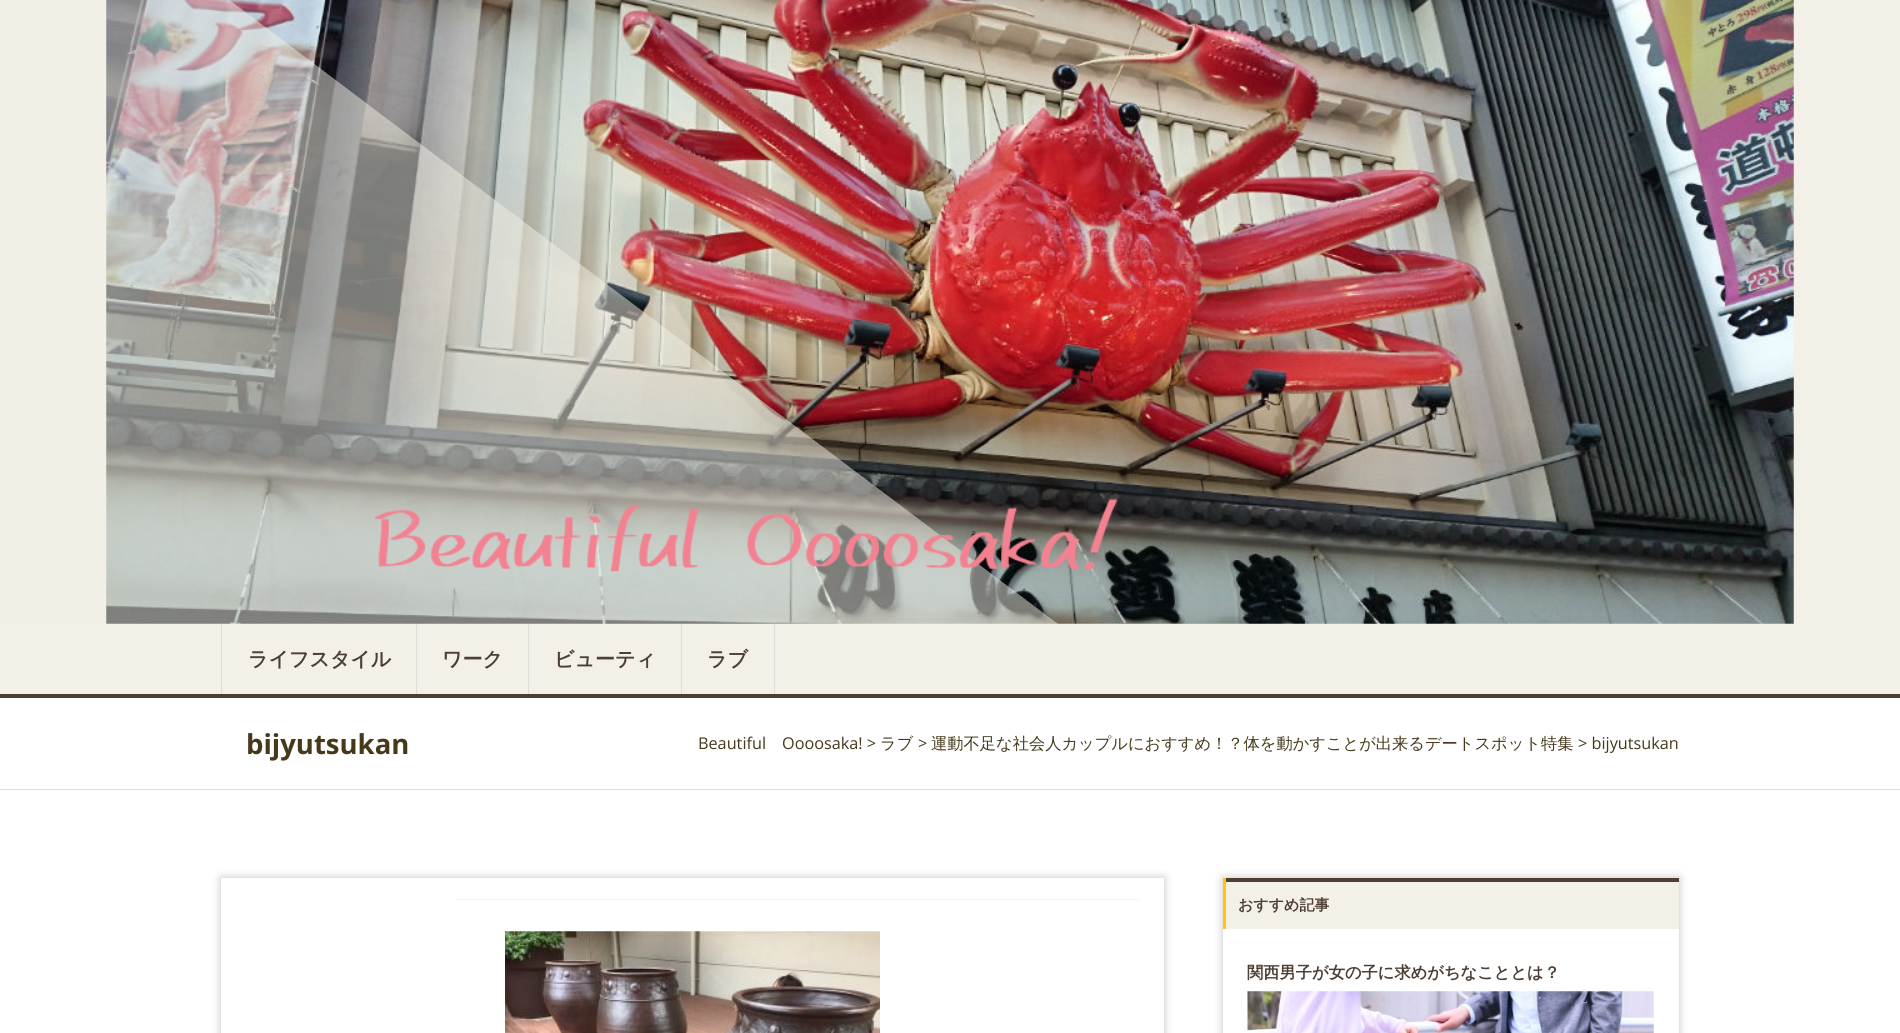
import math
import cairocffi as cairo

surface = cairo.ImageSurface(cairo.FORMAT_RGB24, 1900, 1033)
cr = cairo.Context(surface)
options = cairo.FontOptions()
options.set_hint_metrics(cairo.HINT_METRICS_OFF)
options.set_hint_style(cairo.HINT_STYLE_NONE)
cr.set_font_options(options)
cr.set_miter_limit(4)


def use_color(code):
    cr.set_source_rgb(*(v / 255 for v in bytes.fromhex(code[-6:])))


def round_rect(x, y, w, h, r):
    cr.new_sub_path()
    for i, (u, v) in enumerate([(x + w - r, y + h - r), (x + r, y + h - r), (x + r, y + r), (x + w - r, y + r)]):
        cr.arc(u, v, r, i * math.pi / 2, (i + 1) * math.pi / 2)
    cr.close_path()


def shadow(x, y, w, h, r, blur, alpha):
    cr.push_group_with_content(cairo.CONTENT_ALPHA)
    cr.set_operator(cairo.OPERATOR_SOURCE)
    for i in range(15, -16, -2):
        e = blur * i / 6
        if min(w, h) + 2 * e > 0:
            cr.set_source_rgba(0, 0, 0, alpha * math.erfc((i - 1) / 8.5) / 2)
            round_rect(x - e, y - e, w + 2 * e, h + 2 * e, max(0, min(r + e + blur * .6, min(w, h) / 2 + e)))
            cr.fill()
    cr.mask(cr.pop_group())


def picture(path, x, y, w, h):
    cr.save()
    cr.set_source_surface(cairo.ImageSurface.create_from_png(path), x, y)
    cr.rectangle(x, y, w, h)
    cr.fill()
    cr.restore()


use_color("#ffffff")
cr.paint()
use_color("#f3f0e7")
cr.rectangle(0, 0, 1900, 694)
cr.fill()
picture("img1.png", 106, 0, 1688, 624)
cr.save()
cr.rectangle(0, 0, 1900, 624)
cr.clip()
cr.set_source_rgba(0.953, 0.941, 0.906, 0.5)
cr.new_path()
cr.move_to(-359, -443)
cr.line_to(1159, 700)
cr.line_to(406, 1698)
cr.line_to(-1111, 555)
cr.close_path()
cr.fill()
cr.restore()
picture("img2.png", 375, 498, 743, 74)
use_color("#4d3f34")
cr.rectangle(0, 694, 1900, 4)
cr.fill()
use_color("#deddd9")
cr.rectangle(221, 624, 1, 70)
cr.fill()
cr.select_font_face("WenQuanYi Zen Hei", cairo.FONT_SLANT_NORMAL, cairo.FONT_WEIGHT_BOLD)
cr.set_font_size(20)
use_color("#4d3f34")
cr.move_to(248, 666)
cr.show_text("ライフスタイル")
use_color("#deddd9")
cr.rectangle(416, 624, 1, 70)
cr.fill()
use_color("#4d3f34")
cr.move_to(442, 666)
cr.show_text("ワーク")
use_color("#deddd9")
cr.rectangle(528, 624, 1, 70)
cr.fill()
use_color("#4d3f34")
cr.move_to(554, 666)
cr.show_text("ビューティ")
use_color("#deddd9")
cr.rectangle(774, 624, 1, 70)
cr.fill()
cr.rectangle(681, 624, 1, 70)
cr.fill()
use_color("#4d3f34")
cr.move_to(707, 666)
cr.show_text("ラブ")
use_color("#deddd9")
cr.rectangle(0, 789, 1900, 1)
cr.fill()
cr.select_font_face("Open Sans", cairo.FONT_SLANT_NORMAL, cairo.FONT_WEIGHT_BOLD)
cr.set_font_size(27.5)
use_color("#46391b")
cr.move_to(246, 754)
cr.show_text("bijyutsukan")
cr.select_font_face("Open Sans")
cr.set_font_size(16.25)
cr.move_to(698, 749)
cr.show_text("Beautiful")
cr.move_to(782, 749)
cr.show_text("Oooosaka! >")
cr.select_font_face("WenQuanYi Zen Hei Medium")
cr.move_to(880, 749)
cr.show_text("ラブ")
cr.select_font_face("Open Sans")
cr.move_to(918, 749)
cr.show_text(">")
cr.select_font_face("WenQuanYi Zen Hei Medium")
cr.move_to(931, 749)
cr.show_text("運動不足な社会人カップルにおすすめ！？体を動かすことが出来るデートスポット特集")
cr.select_font_face("Open Sans")
cr.move_to(1578, 749)
cr.show_text("> bijyutsukan")
use_color("#c2c2c2")
shadow(221, 878, 943, 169, 0, 4.5, 1)
use_color("#ffffff")
cr.rectangle(221, 878, 943, 155)
cr.fill()
use_color("#f4f4f4")
cr.rectangle(456, 899, 683, 1)
cr.fill()
picture("img3.png", 505, 931, 375, 102)
use_color("#c2c2c2")
shadow(1223, 878, 456, 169, 0, 4.5, 1)
use_color("#ffffff")
cr.rectangle(1223, 929, 456, 104)
cr.fill()
use_color("#ffc800")
cr.rectangle(1223, 878, 3, 51)
cr.fill()
use_color("#f3f0e7")
cr.rectangle(1226, 882, 453, 47)
cr.fill()
use_color("#4d3f34")
cr.rectangle(1226, 878, 453, 4)
cr.fill()
cr.select_font_face("WenQuanYi Zen Hei", cairo.FONT_SLANT_NORMAL, cairo.FONT_WEIGHT_BOLD)
cr.set_font_size(15)
cr.move_to(1238, 910)
cr.show_text("おすすめ記事")
cr.set_font_size(16.25)
cr.move_to(1247, 978)
cr.show_text("関西男子が女の子に求めがちなこととは？")
picture("img4.png", 1247, 991, 407, 42)
surface.write_to_png("result.png")
